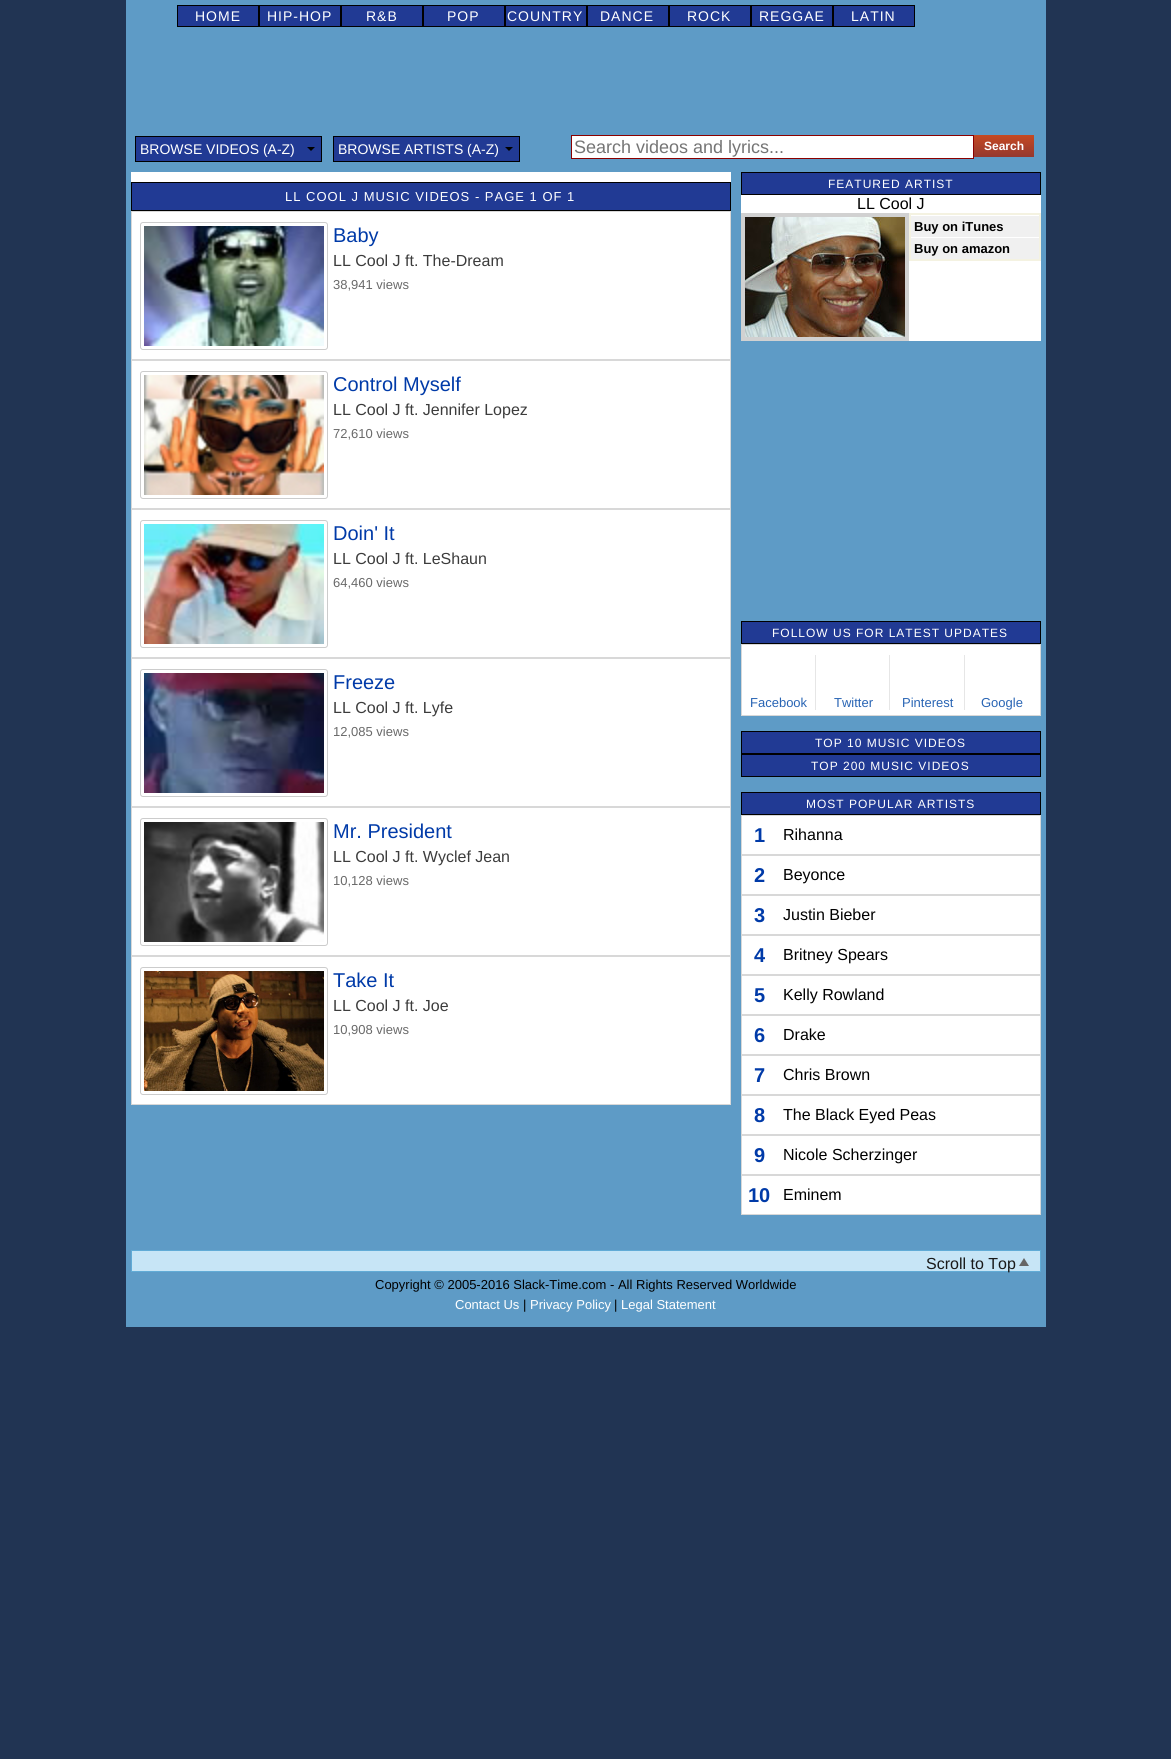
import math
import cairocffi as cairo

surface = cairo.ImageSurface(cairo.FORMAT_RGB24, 1171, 1759)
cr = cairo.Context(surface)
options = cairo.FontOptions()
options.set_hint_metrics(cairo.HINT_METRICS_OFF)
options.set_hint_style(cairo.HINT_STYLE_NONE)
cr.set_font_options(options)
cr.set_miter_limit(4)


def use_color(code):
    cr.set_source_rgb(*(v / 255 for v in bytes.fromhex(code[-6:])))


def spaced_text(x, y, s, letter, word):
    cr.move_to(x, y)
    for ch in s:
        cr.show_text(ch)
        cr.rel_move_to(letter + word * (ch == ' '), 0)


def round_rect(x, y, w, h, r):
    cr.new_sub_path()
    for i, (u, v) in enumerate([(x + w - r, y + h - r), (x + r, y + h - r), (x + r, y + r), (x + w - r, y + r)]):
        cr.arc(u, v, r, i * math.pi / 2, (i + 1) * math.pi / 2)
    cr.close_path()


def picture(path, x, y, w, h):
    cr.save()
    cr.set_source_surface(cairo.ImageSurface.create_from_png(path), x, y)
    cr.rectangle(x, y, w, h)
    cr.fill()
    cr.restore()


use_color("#213453")
cr.paint()
use_color("#5e9bc6")
cr.rectangle(126, 0, 920, 1327)
cr.fill()
use_color("#213a94")
cr.rectangle(177.5, 5.5, 81, 21)
cr.fill_preserve()
use_color("#000000")
cr.set_line_width(1)
cr.stroke()
cr.select_font_face("Liberation Sans")
cr.set_font_size(14)
use_color("#ffffff")
spaced_text(195, 21, "HOME", 1, 0)
use_color("#213a94")
cr.rectangle(259.5, 5.5, 81, 21)
cr.fill_preserve()
use_color("#000000")
cr.stroke()
use_color("#ffffff")
spaced_text(267, 21, "HIP-HOP", 1, 0)
use_color("#213a94")
cr.rectangle(341.5, 5.5, 81, 21)
cr.fill_preserve()
use_color("#000000")
cr.stroke()
use_color("#ffffff")
spaced_text(366, 21, "R&B", 1, 0)
use_color("#213a94")
cr.rectangle(423.5, 5.5, 81, 21)
cr.fill_preserve()
use_color("#000000")
cr.stroke()
use_color("#ffffff")
spaced_text(447, 21, "POP", 1, 0)
use_color("#213a94")
cr.rectangle(505.5, 5.5, 81, 21)
cr.fill_preserve()
use_color("#000000")
cr.stroke()
use_color("#ffffff")
spaced_text(507, 21, "COUNTRY", 1, 0)
use_color("#213a94")
cr.rectangle(587.5, 5.5, 81, 21)
cr.fill_preserve()
use_color("#000000")
cr.stroke()
use_color("#ffffff")
spaced_text(600, 21, "DANCE", 1, 0)
use_color("#213a94")
cr.rectangle(669.5, 5.5, 81, 21)
cr.fill_preserve()
use_color("#000000")
cr.stroke()
use_color("#ffffff")
spaced_text(687, 21, "ROCK", 1, 0)
use_color("#213a94")
cr.rectangle(751.5, 5.5, 81, 21)
cr.fill_preserve()
use_color("#000000")
cr.stroke()
use_color("#ffffff")
spaced_text(759, 21, "REGGAE", 1, 0)
use_color("#213a94")
cr.rectangle(833.5, 5.5, 81, 21)
cr.fill_preserve()
use_color("#000000")
cr.stroke()
use_color("#ffffff")
spaced_text(851, 21, "LATIN", 1, 0)
use_color("#213a94")
cr.rectangle(135.5, 136.5, 186, 25)
cr.fill_preserve()
use_color("#000000")
cr.stroke()
use_color("#ffffff")
cr.move_to(140, 154)
cr.show_text("BROWSE VIDEOS (A-Z)")
use_color("#000000")
cr.new_path()
cr.move_to(307, 147)
cr.line_to(315, 147)
cr.line_to(311, 151)
cr.close_path()
cr.fill()
use_color("#213a94")
cr.rectangle(333.5, 136.5, 186, 25)
cr.fill_preserve()
use_color("#000000")
cr.stroke()
use_color("#ffffff")
cr.move_to(338, 154)
cr.show_text("BROWSE ARTISTS (A-Z)")
use_color("#000000")
cr.new_path()
cr.move_to(505, 147)
cr.line_to(513, 147)
cr.line_to(509, 151)
cr.close_path()
cr.fill()
use_color("#ffffff")
cr.rectangle(571.5, 135.5, 402, 23)
cr.fill_preserve()
use_color("#8b0000")
cr.stroke()
cr.set_font_size(18)
use_color("#757575")
cr.move_to(574, 153)
cr.show_text("Search videos and lyrics...")
gradient = cairo.LinearGradient(974, 135, 974, 157)
gradient.add_color_stop_rgba(0, 0.776, 0.286, 0.133, 1)
gradient.add_color_stop_rgba(1, 0.58, 0.22, 0.184, 1)
cr.set_source(gradient)
cr.rectangle(974, 135, 60, 22)
cr.fill()
cr.select_font_face("Liberation Sans", cairo.FONT_SLANT_NORMAL, cairo.FONT_WEIGHT_BOLD)
cr.set_font_size(12)
use_color("#ffffff")
cr.move_to(984, 150)
cr.show_text("Search")
cr.rectangle(131, 172, 600, 10)
cr.fill()
use_color("#213a94")
cr.rectangle(131.5, 182.5, 599, 28)
cr.fill_preserve()
use_color("#000000")
cr.stroke()
cr.select_font_face("Liberation Sans")
cr.set_font_size(13)
use_color("#ffffff")
spaced_text(285, 201, "LL COOL J MUSIC VIDEOS - PAGE 1 OF 1", 1, 0)
cr.rectangle(131.5, 211.5, 599, 148)
cr.fill_preserve()
use_color("#d8d8d8")
cr.stroke()
round_rect(140.5, 222.5, 187, 127, 2.5)
use_color("#cccccc")
cr.stroke()
picture("img1.png", 144, 226, 180, 120)
cr.set_font_size(20)
use_color("#003aa8")
cr.move_to(333, 242)
cr.show_text("Baby")
cr.set_font_size(16)
use_color("#3c3c3c")
cr.move_to(333, 266)
cr.show_text("LL Cool J ft. The-Dream")
cr.set_font_size(13)
use_color("#696969")
cr.move_to(333, 289)
cr.show_text("38,941 views")
use_color("#ffffff")
cr.rectangle(131.5, 360.5, 599, 148)
cr.fill_preserve()
use_color("#d8d8d8")
cr.stroke()
round_rect(140.5, 371.5, 187, 127, 2.5)
use_color("#cccccc")
cr.stroke()
picture("img2.png", 144, 375, 180, 120)
cr.set_font_size(20)
use_color("#003aa8")
cr.move_to(333, 391)
cr.show_text("Control Myself")
cr.set_font_size(16)
use_color("#3c3c3c")
cr.move_to(333, 415)
cr.show_text("LL Cool J ft. Jennifer Lopez")
cr.set_font_size(13)
use_color("#696969")
cr.move_to(333, 438)
cr.show_text("72,610 views")
use_color("#ffffff")
cr.rectangle(131.5, 509.5, 599, 148)
cr.fill_preserve()
use_color("#d8d8d8")
cr.stroke()
round_rect(140.5, 520.5, 187, 127, 2.5)
use_color("#cccccc")
cr.stroke()
picture("img3.png", 144, 524, 180, 120)
cr.set_font_size(20)
use_color("#003aa8")
cr.move_to(333, 540)
cr.show_text("Doin' It")
cr.set_font_size(16)
use_color("#3c3c3c")
cr.move_to(333, 564)
cr.show_text("LL Cool J ft. LeShaun")
cr.set_font_size(13)
use_color("#696969")
cr.move_to(333, 587)
cr.show_text("64,460 views")
use_color("#ffffff")
cr.rectangle(131.5, 658.5, 599, 148)
cr.fill_preserve()
use_color("#d8d8d8")
cr.stroke()
round_rect(140.5, 669.5, 187, 127, 2.5)
use_color("#cccccc")
cr.stroke()
picture("img4.png", 144, 673, 180, 120)
cr.set_font_size(20)
use_color("#003aa8")
cr.move_to(333, 689)
cr.show_text("Freeze")
cr.set_font_size(16)
use_color("#3c3c3c")
cr.move_to(333, 713)
cr.show_text("LL Cool J ft. Lyfe")
cr.set_font_size(13)
use_color("#696969")
cr.move_to(333, 736)
cr.show_text("12,085 views")
use_color("#ffffff")
cr.rectangle(131.5, 807.5, 599, 148)
cr.fill_preserve()
use_color("#d8d8d8")
cr.stroke()
round_rect(140.5, 818.5, 187, 127, 2.5)
use_color("#cccccc")
cr.stroke()
picture("img5.png", 144, 822, 180, 120)
cr.set_font_size(20)
use_color("#003aa8")
cr.move_to(333, 838)
cr.show_text("Mr. President")
cr.set_font_size(16)
use_color("#3c3c3c")
cr.move_to(333, 862)
cr.show_text("LL Cool J ft. Wyclef Jean")
cr.set_font_size(13)
use_color("#696969")
cr.move_to(333, 885)
cr.show_text("10,128 views")
use_color("#ffffff")
cr.rectangle(131.5, 956.5, 599, 148)
cr.fill_preserve()
use_color("#d8d8d8")
cr.stroke()
round_rect(140.5, 967.5, 187, 127, 2.5)
use_color("#cccccc")
cr.stroke()
picture("img6.png", 144, 971, 180, 120)
cr.set_font_size(20)
use_color("#003aa8")
cr.move_to(333, 987)
cr.show_text("Take It")
cr.set_font_size(16)
use_color("#3c3c3c")
cr.move_to(333, 1011)
cr.show_text("LL Cool J ft. Joe")
cr.set_font_size(13)
use_color("#696969")
cr.move_to(333, 1034)
cr.show_text("10,908 views")
use_color("#ffffff")
cr.rectangle(741, 195, 300, 146)
cr.fill()
use_color("#213a94")
cr.rectangle(741.5, 172.5, 299, 22)
cr.fill_preserve()
use_color("#000000")
cr.stroke()
cr.set_font_size(12)
use_color("#ffffff")
spaced_text(828, 188, "FEATURED ARTIST", 1, 0)
cr.set_font_size(16)
use_color("#000000")
cr.move_to(857, 209)
cr.show_text("LL Cool J")
cr.rectangle(743, 215, 164, 124)
use_color("#d1d1d1")
cr.set_line_width(4)
cr.stroke()
picture("img7.png", 745, 217, 160, 120)
use_color("#f4f2e1")
cr.rectangle(909, 213, 132, 48)
cr.fill()
use_color("#ffffff")
cr.rectangle(911, 215, 128, 1)
cr.fill()
use_color("#f0f0f0")
cr.rectangle(911, 216, 128, 21)
cr.fill()
cr.select_font_face("Liberation Sans", cairo.FONT_SLANT_NORMAL, cairo.FONT_WEIGHT_BOLD)
cr.set_font_size(13)
use_color("#000000")
cr.move_to(914, 231)
cr.show_text("Buy on iTunes")
use_color("#ffffff")
cr.rectangle(911, 237, 128, 1)
cr.fill()
use_color("#f0f0f0")
cr.rectangle(911, 238, 128, 21)
cr.fill()
use_color("#000000")
cr.move_to(914, 253)
cr.show_text("Buy on amazon")
use_color("#213a94")
cr.rectangle(741.5, 621.5, 299, 22)
cr.fill_preserve()
use_color("#000000")
cr.set_line_width(1)
cr.stroke()
cr.select_font_face("Liberation Sans")
cr.set_font_size(12)
use_color("#ffffff")
spaced_text(772, 637, "FOLLOW US FOR LATEST UPDATES", 1, 0)
cr.rectangle(741.5, 644.5, 299, 71)
cr.fill_preserve()
use_color("#d8d8d8")
cr.stroke()
cr.set_font_size(13)
use_color("#2864b4")
cr.move_to(750, 707)
cr.show_text("Facebook")
use_color("#e6e6e6")
cr.rectangle(815, 655, 1, 55)
cr.fill()
use_color("#2864b4")
cr.move_to(834, 707)
cr.show_text("Twitter")
use_color("#e6e6e6")
cr.rectangle(889, 655, 1, 55)
cr.fill()
use_color("#2864b4")
cr.move_to(902, 707)
cr.show_text("Pinterest")
use_color("#e6e6e6")
cr.rectangle(964, 655, 1, 55)
cr.fill()
use_color("#2864b4")
cr.move_to(981, 707)
cr.show_text("Google")
use_color("#213a94")
cr.rectangle(741.5, 731.5, 299, 22)
cr.fill_preserve()
use_color("#000000")
cr.stroke()
cr.set_font_size(12)
use_color("#ffffff")
spaced_text(815, 747, "TOP 10 MUSIC VIDEOS", 1, 0)
use_color("#213a94")
cr.rectangle(741.5, 754.5, 299, 22)
cr.fill_preserve()
use_color("#000000")
cr.stroke()
use_color("#ffffff")
spaced_text(811, 770, "TOP 200 MUSIC VIDEOS", 1, 0)
use_color("#213a94")
cr.rectangle(741.5, 792.5, 299, 22)
cr.fill_preserve()
use_color("#000000")
cr.stroke()
use_color("#ffffff")
spaced_text(806, 808, "MOST POPULAR ARTISTS", 1, 0)
cr.rectangle(741.5, 815.5, 299, 39)
cr.fill_preserve()
use_color("#d8d8d8")
cr.stroke()
cr.select_font_face("Liberation Sans", cairo.FONT_SLANT_NORMAL, cairo.FONT_WEIGHT_BOLD)
cr.set_font_size(20)
use_color("#003aa8")
cr.move_to(754, 842)
cr.show_text("1")
cr.select_font_face("Liberation Sans")
cr.set_font_size(16)
use_color("#000000")
cr.move_to(783, 840)
cr.show_text("Rihanna")
use_color("#ffffff")
cr.rectangle(741.5, 855.5, 299, 39)
cr.fill_preserve()
use_color("#d8d8d8")
cr.stroke()
cr.select_font_face("Liberation Sans", cairo.FONT_SLANT_NORMAL, cairo.FONT_WEIGHT_BOLD)
cr.set_font_size(20)
use_color("#003aa8")
cr.move_to(754, 882)
cr.show_text("2")
cr.select_font_face("Liberation Sans")
cr.set_font_size(16)
use_color("#000000")
cr.move_to(783, 880)
cr.show_text("Beyonce")
use_color("#ffffff")
cr.rectangle(741.5, 895.5, 299, 39)
cr.fill_preserve()
use_color("#d8d8d8")
cr.stroke()
cr.select_font_face("Liberation Sans", cairo.FONT_SLANT_NORMAL, cairo.FONT_WEIGHT_BOLD)
cr.set_font_size(20)
use_color("#003aa8")
cr.move_to(754, 922)
cr.show_text("3")
cr.select_font_face("Liberation Sans")
cr.set_font_size(16)
use_color("#000000")
cr.move_to(783, 920)
cr.show_text("Justin Bieber")
use_color("#ffffff")
cr.rectangle(741.5, 935.5, 299, 39)
cr.fill_preserve()
use_color("#d8d8d8")
cr.stroke()
cr.select_font_face("Liberation Sans", cairo.FONT_SLANT_NORMAL, cairo.FONT_WEIGHT_BOLD)
cr.set_font_size(20)
use_color("#003aa8")
cr.move_to(754, 962)
cr.show_text("4")
cr.select_font_face("Liberation Sans")
cr.set_font_size(16)
use_color("#000000")
cr.move_to(783, 960)
cr.show_text("Britney Spears")
use_color("#ffffff")
cr.rectangle(741.5, 975.5, 299, 39)
cr.fill_preserve()
use_color("#d8d8d8")
cr.stroke()
cr.select_font_face("Liberation Sans", cairo.FONT_SLANT_NORMAL, cairo.FONT_WEIGHT_BOLD)
cr.set_font_size(20)
use_color("#003aa8")
cr.move_to(754, 1002)
cr.show_text("5")
cr.select_font_face("Liberation Sans")
cr.set_font_size(16)
use_color("#000000")
cr.move_to(783, 1000)
cr.show_text("Kelly Rowland")
use_color("#ffffff")
cr.rectangle(741.5, 1015.5, 299, 39)
cr.fill_preserve()
use_color("#d8d8d8")
cr.stroke()
cr.select_font_face("Liberation Sans", cairo.FONT_SLANT_NORMAL, cairo.FONT_WEIGHT_BOLD)
cr.set_font_size(20)
use_color("#003aa8")
cr.move_to(754, 1042)
cr.show_text("6")
cr.select_font_face("Liberation Sans")
cr.set_font_size(16)
use_color("#000000")
cr.move_to(783, 1040)
cr.show_text("Drake")
use_color("#ffffff")
cr.rectangle(741.5, 1055.5, 299, 39)
cr.fill_preserve()
use_color("#d8d8d8")
cr.stroke()
cr.select_font_face("Liberation Sans", cairo.FONT_SLANT_NORMAL, cairo.FONT_WEIGHT_BOLD)
cr.set_font_size(20)
use_color("#003aa8")
cr.move_to(754, 1082)
cr.show_text("7")
cr.select_font_face("Liberation Sans")
cr.set_font_size(16)
use_color("#000000")
cr.move_to(783, 1080)
cr.show_text("Chris Brown")
use_color("#ffffff")
cr.rectangle(741.5, 1095.5, 299, 39)
cr.fill_preserve()
use_color("#d8d8d8")
cr.stroke()
cr.select_font_face("Liberation Sans", cairo.FONT_SLANT_NORMAL, cairo.FONT_WEIGHT_BOLD)
cr.set_font_size(20)
use_color("#003aa8")
cr.move_to(754, 1122)
cr.show_text("8")
cr.select_font_face("Liberation Sans")
cr.set_font_size(16)
use_color("#000000")
cr.move_to(783, 1120)
cr.show_text("The Black Eyed Peas")
use_color("#ffffff")
cr.rectangle(741.5, 1135.5, 299, 39)
cr.fill_preserve()
use_color("#d8d8d8")
cr.stroke()
cr.select_font_face("Liberation Sans", cairo.FONT_SLANT_NORMAL, cairo.FONT_WEIGHT_BOLD)
cr.set_font_size(20)
use_color("#003aa8")
cr.move_to(754, 1162)
cr.show_text("9")
cr.select_font_face("Liberation Sans")
cr.set_font_size(16)
use_color("#000000")
cr.move_to(783, 1160)
cr.show_text("Nicole Scherzinger")
use_color("#ffffff")
cr.rectangle(741.5, 1175.5, 299, 39)
cr.fill_preserve()
use_color("#d8d8d8")
cr.stroke()
cr.select_font_face("Liberation Sans", cairo.FONT_SLANT_NORMAL, cairo.FONT_WEIGHT_BOLD)
cr.set_font_size(20)
use_color("#003aa8")
cr.move_to(748, 1202)
cr.show_text("10")
cr.select_font_face("Liberation Sans")
cr.set_font_size(16)
use_color("#000000")
cr.move_to(783, 1200)
cr.show_text("Eminem")
use_color("#c7e5f6")
cr.rectangle(131.5, 1250.5, 909, 21)
cr.fill_preserve()
use_color("#61abd6")
cr.stroke()
use_color("#191919")
cr.move_to(926, 1269)
cr.show_text("Scroll to Top")
use_color("#666666")
cr.new_path()
cr.move_to(1029, 1266)
cr.line_to(1019, 1266)
cr.line_to(1024, 1258)
cr.close_path()
cr.fill()
cr.set_font_size(13)
use_color("#000000")
cr.move_to(375, 1289)
cr.show_text("Copyright © 2005-2016 Slack-Time.com - All Rights Reserved Worldwide")
use_color("#ffffff")
cr.move_to(455, 1309)
cr.show_text("Contact Us")
use_color("#000000")
cr.move_to(523, 1309)
cr.show_text("|")
use_color("#ffffff")
cr.move_to(530, 1309)
cr.show_text("Privacy Policy")
use_color("#000000")
cr.move_to(614, 1309)
cr.show_text("|")
use_color("#ffffff")
cr.move_to(621, 1309)
cr.show_text("Legal Statement")
surface.write_to_png("result.png")
